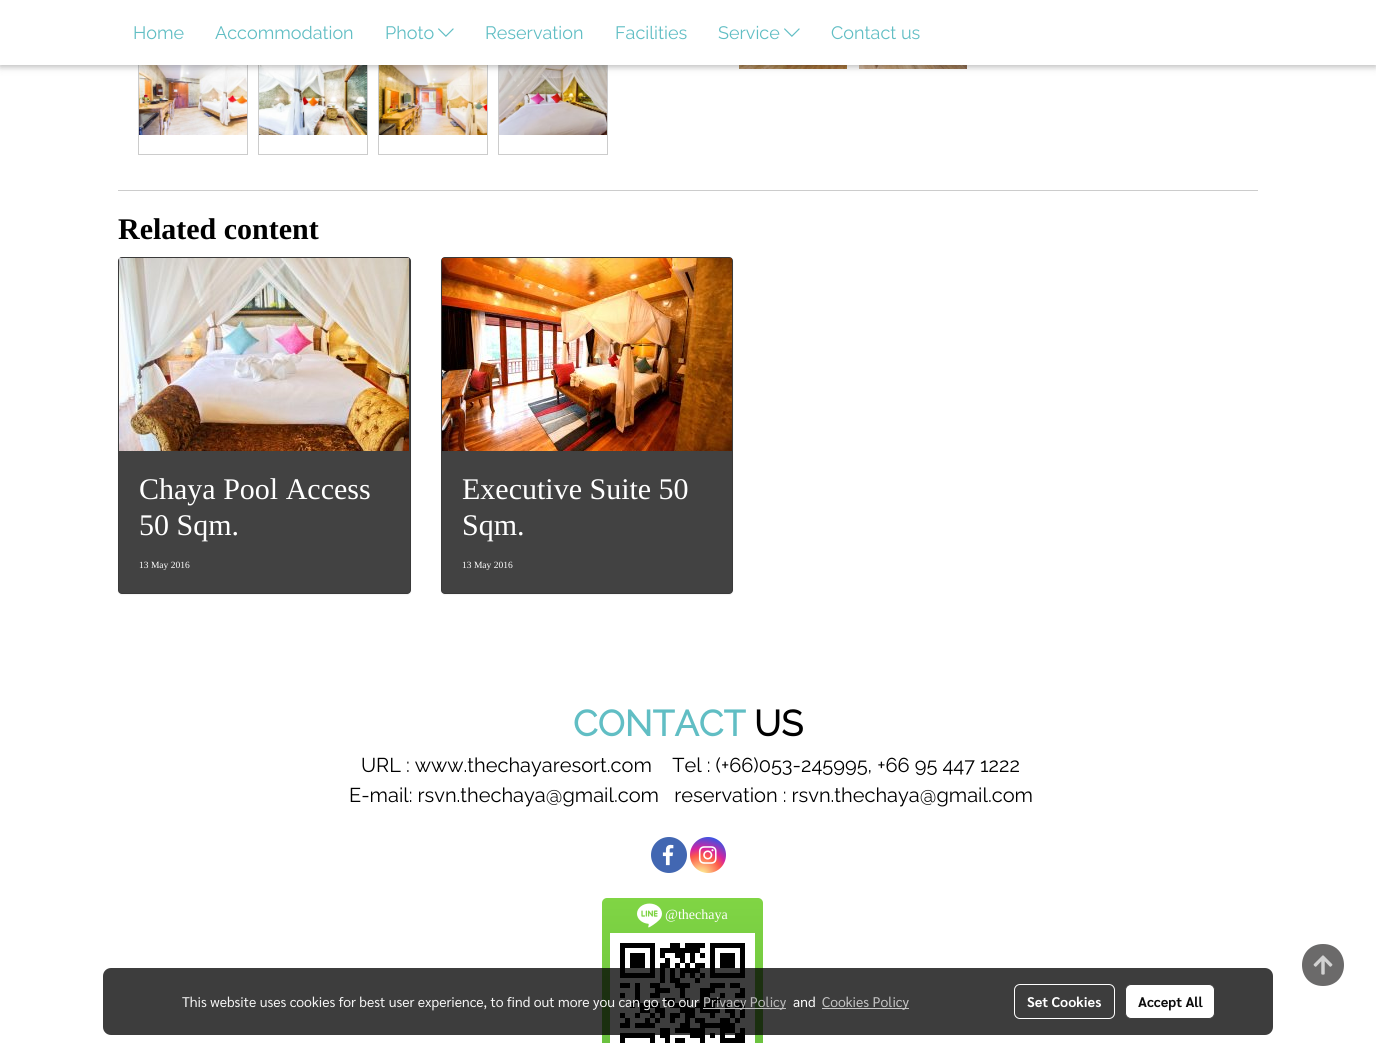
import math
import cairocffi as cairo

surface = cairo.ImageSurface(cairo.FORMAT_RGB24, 1376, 1043)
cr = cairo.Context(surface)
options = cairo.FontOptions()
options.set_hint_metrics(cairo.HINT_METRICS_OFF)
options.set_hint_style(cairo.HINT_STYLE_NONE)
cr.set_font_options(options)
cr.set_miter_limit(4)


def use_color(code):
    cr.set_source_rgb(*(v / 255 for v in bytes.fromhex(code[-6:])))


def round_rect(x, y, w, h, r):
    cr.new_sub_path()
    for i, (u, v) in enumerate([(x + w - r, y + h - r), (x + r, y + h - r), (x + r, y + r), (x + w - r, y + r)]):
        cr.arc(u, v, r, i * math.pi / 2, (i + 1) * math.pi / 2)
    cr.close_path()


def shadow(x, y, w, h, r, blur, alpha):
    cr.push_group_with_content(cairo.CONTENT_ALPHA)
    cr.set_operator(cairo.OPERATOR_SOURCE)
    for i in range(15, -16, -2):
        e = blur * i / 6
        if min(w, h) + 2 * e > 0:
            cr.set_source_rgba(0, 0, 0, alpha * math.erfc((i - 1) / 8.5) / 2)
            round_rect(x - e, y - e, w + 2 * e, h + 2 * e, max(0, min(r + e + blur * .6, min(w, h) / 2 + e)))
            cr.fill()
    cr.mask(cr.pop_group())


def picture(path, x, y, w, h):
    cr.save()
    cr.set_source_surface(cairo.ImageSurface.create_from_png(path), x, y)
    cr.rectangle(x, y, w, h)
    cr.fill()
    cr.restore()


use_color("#ffffff")
cr.paint()
cr.rectangle(138.5, 45.5, 109, 109)
use_color("#cccccc")
cr.set_line_width(1)
cr.stroke()
picture("img2.png", 139, 65, 108, 70)
cr.rectangle(258.5, 45.5, 109, 109)
cr.stroke()
picture("img3.png", 259, 65, 108, 70)
cr.rectangle(378.5, 45.5, 109, 109)
cr.stroke()
picture("img4.png", 379, 65, 108, 70)
cr.rectangle(498.5, 45.5, 109, 109)
cr.stroke()
picture("img5.png", 499, 65, 108, 70)
picture("img6.png", 739, 65, 108, 4)
picture("img7.png", 859, 65, 108, 4)
use_color("#000000")
shadow(0, 2, 1376, 65, 0, 5, 0.12)
shadow(0, 2, 1376, 65, 0, 2.5, 0.16)
use_color("#ffffff")
cr.rectangle(0, 0, 1376, 65)
cr.fill()
cr.select_font_face("Raleway Thin")
cr.set_font_size(18)
use_color("#61bec4")
cr.move_to(133, 39)
cr.show_text("Home")
cr.move_to(215, 39)
cr.show_text("Accommodation")
cr.move_to(385, 39)
cr.show_text("Photo")
picture("img1.png", 438, 28, 16, 9)
cr.move_to(485, 39)
cr.show_text("Reservation")
cr.move_to(615, 39)
cr.show_text("Facilities")
cr.move_to(718, 39)
cr.show_text("Service")
picture("img1.png", 784, 28, 16, 9)
cr.move_to(831, 39)
cr.show_text("Contact us")
use_color("#cccccc")
cr.rectangle(118, 190, 1140, 1)
cr.fill()
cr.select_font_face("Liberation Serif", cairo.FONT_SLANT_NORMAL, cairo.FONT_WEIGHT_BOLD)
cr.set_font_size(30)
use_color("#000000")
cr.move_to(118, 239)
cr.show_text("Related content")
use_color("#000000")
shadow(118, 258, 293, 337, 4, 0.5, 0.05)
use_color("#424242")
round_rect(118, 257, 293, 337, 4)
cr.fill()
round_rect(118.5, 257.5, 292, 336, 3.5)
cr.set_source_rgba(0, 0, 0, 0.12)
cr.stroke()
picture("img8.png", 119, 258, 290, 193)
cr.select_font_face("Liberation Serif")
use_color("#ffffff")
cr.move_to(139, 499)
cr.show_text("Chaya Pool Access")
cr.move_to(139, 535)
cr.show_text("50 Sqm.")
cr.set_font_size(9.5)
cr.move_to(139, 568)
cr.show_text("13 May 2016")
use_color("#000000")
shadow(441, 258, 292, 337, 4, 0.5, 0.05)
use_color("#424242")
round_rect(441, 257, 292, 337, 4)
cr.fill()
round_rect(441.5, 257.5, 291, 336, 3.5)
cr.set_source_rgba(0, 0, 0, 0.12)
cr.stroke()
picture("img9.png", 442, 258, 290, 193)
cr.set_font_size(30)
use_color("#ffffff")
cr.move_to(462, 499)
cr.show_text("Executive Suite 50")
cr.move_to(462, 535)
cr.show_text("Sqm.")
cr.set_font_size(9.5)
cr.move_to(462, 568)
cr.show_text("13 May 2016")
cr.select_font_face("Raleway", cairo.FONT_SLANT_NORMAL, cairo.FONT_WEIGHT_BOLD)
cr.set_font_size(36)
use_color("#61bec4")
cr.move_to(573, 736)
cr.show_text("CONTACT")
use_color("#000000")
cr.move_to(754, 736)
cr.show_text("US")
cr.select_font_face("Raleway Thin")
cr.set_font_size(20)
cr.move_to(361, 772)
cr.show_text("URL : www.thechayaresort.com    Tel : (+66)053-245995, +66 95 447 1222")
cr.move_to(349, 802)
cr.show_text("E-mail: rsvn.thechaya@gmail.com   reservation : rsvn.thechaya@gmail.com")
use_color("#4267b2")
cr.new_path()
cr.arc(669, 855, 18, 0, 2 * math.pi)
cr.fill()
picture("img10.png", 662, 844, 12, 22)
gradient = cairo.RadialGradient(701, 876, 0, 701, 876, 46)
gradient.add_color_stop_rgba(0, 0.992, 0.957, 0.592, 1)
gradient.add_color_stop_rgba(0.05, 0.992, 0.957, 0.592, 1)
gradient.add_color_stop_rgba(0.45, 0.992, 0.349, 0.286, 1)
gradient.add_color_stop_rgba(0.6, 0.839, 0.141, 0.624, 1)
gradient.add_color_stop_rgba(0.9, 0.157, 0.353, 0.922, 1)
cr.set_source(gradient)
cr.arc(708, 855, 18, 0, 2 * math.pi)
cr.fill()
picture("img11.png", 698, 846, 19, 18)
gradient = cairo.LinearGradient(683, 898, 683, 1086)
gradient.add_color_stop_rgba(0, 0.502, 0.835, 0.267, 1)
gradient.add_color_stop_rgba(1, 0.396, 0.737, 0.243, 1)
cr.set_source(gradient)
round_rect(602, 898, 161, 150, 5)
cr.fill()
picture("img12.png", 637, 903, 25, 25)
cr.select_font_face("Liberation Serif")
cr.set_font_size(14)
use_color("#ffffff")
cr.move_to(665, 919)
cr.show_text("@thechaya")
picture("img13.png", 610, 933, 145, 110)
use_color("#6b6a6a")
cr.new_path()
cr.move_to(1323, 944)
cr.curve_to(1295, 944, 1295, 986, 1323, 986)
cr.curve_to(1351, 986, 1351, 944, 1323, 944)
cr.close_path()
cr.fill()
picture("img14.png", 1313, 955, 20, 20)
cr.set_source_rgba(0, 0, 0, 0.76)
round_rect(103, 968, 1170, 67, 8)
cr.fill()
cr.select_font_face("Sarabun")
use_color("#f5f5f5")
cr.move_to(182, 1007)
cr.show_text("This website uses cookies for best user experience, to find out more you can go to our")
cr.set_source_rgba(0.761, 0.761, 0.761, 0.95)
cr.rectangle(703, 1008, 83, 1)
cr.fill()
use_color("#bbbbbb")
cr.move_to(703, 1007)
cr.show_text("Privacy Policy")
use_color("#ffffff")
cr.move_to(793, 1007)
cr.show_text("and")
use_color("#c5c5c5")
cr.rectangle(822, 1008, 87, 1)
cr.fill()
cr.move_to(822, 1007)
cr.show_text("Cookies Policy")
round_rect(1014.5, 984.5, 100, 34, 5.5)
use_color("#ffffff")
cr.stroke()
cr.select_font_face("Sarabun", cairo.FONT_SLANT_NORMAL, cairo.FONT_WEIGHT_BOLD)
cr.move_to(1027, 1007)
cr.show_text("Set Cookies")
round_rect(1125.5, 984.5, 89, 34, 5.5)
cr.fill_preserve()
use_color("#3d3d3d")
cr.stroke()
use_color("#0d0d0d")
cr.move_to(1138, 1007)
cr.show_text("Accept All")
surface.write_to_png("result.png")
